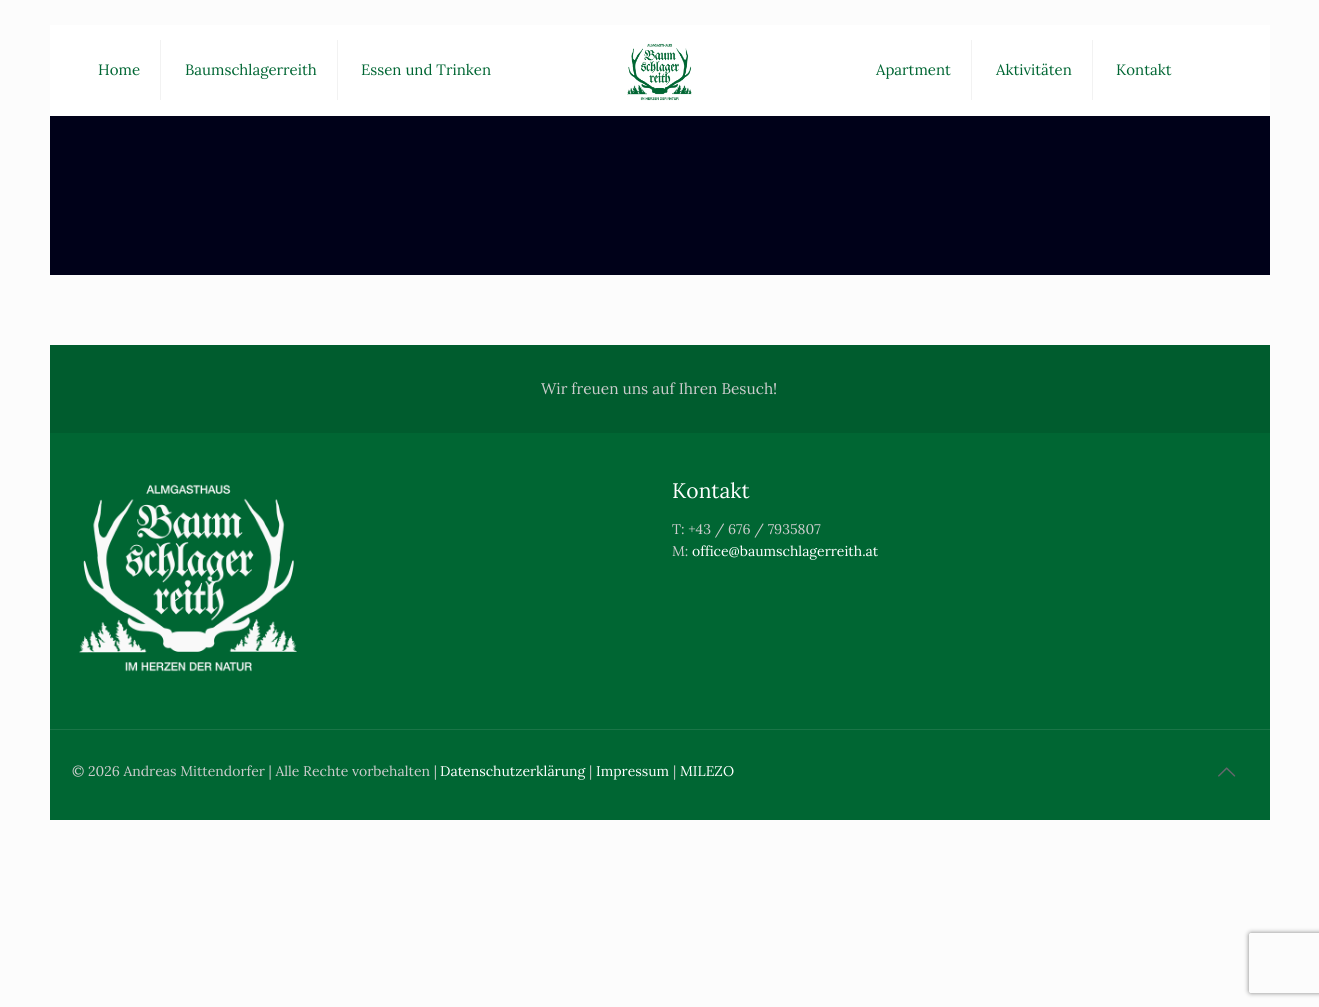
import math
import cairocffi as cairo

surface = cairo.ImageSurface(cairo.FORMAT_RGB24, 1319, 1007)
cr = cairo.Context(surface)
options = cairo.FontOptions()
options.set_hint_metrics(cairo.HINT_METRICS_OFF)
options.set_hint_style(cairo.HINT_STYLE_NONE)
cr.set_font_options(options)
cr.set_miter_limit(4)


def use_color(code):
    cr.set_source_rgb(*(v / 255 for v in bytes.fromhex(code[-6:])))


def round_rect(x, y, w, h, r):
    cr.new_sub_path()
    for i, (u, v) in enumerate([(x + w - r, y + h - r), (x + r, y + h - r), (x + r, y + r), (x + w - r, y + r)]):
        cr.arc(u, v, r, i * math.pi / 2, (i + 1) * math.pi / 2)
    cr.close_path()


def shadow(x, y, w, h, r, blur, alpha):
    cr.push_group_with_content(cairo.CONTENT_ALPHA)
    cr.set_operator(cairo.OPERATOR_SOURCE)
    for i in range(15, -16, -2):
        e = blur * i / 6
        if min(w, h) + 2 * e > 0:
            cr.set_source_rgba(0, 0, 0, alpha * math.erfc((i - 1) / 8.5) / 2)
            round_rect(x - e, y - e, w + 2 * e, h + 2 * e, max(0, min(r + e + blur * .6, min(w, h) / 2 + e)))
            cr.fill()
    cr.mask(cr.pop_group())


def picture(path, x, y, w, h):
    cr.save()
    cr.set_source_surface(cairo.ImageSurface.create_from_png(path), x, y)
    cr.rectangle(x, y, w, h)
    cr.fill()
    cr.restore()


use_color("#fcfcfc")
cr.paint()
use_color("#000119")
cr.rectangle(50, 116, 1220, 159)
cr.fill()
use_color("#ffffff")
cr.rectangle(50, 25, 1220, 91)
cr.fill()
picture("img1.png", 627, 43, 65, 58)
use_color("#f2f2f2")
cr.rectangle(160, 40, 1, 60)
cr.fill()
cr.select_font_face("Lora")
cr.set_font_size(15)
use_color("#006633")
cr.move_to(98, 75)
cr.show_text("Home")
use_color("#f2f2f2")
cr.rectangle(337, 40, 1, 60)
cr.fill()
use_color("#006633")
cr.move_to(185, 75)
cr.show_text("Baumschlagerreith")
cr.move_to(361, 75)
cr.show_text("Essen und Trinken")
use_color("#f2f2f2")
cr.rectangle(971, 40, 1, 60)
cr.fill()
use_color("#006633")
cr.move_to(876, 75)
cr.show_text("Apartment")
use_color("#f2f2f2")
cr.rectangle(1092, 40, 1, 60)
cr.fill()
use_color("#006633")
cr.move_to(996, 75)
cr.show_text("Aktivitäten")
cr.move_to(1116, 75)
cr.show_text("Kontakt")
cr.rectangle(50, 433, 1220, 387)
cr.fill()
use_color("#005c2e")
cr.rectangle(50, 345, 1220, 88)
cr.fill()
cr.set_font_size(15.4)
use_color("#cccccc")
cr.move_to(541, 394)
cr.show_text("Wir freuen uns auf Ihren Besuch!")
picture("img2.png", 79, 484, 218, 188)
cr.set_font_size(21)
use_color("#ffffff")
cr.move_to(672, 498)
cr.show_text("Kontakt")
cr.set_font_size(14)
use_color("#cccccc")
cr.move_to(672, 534)
cr.show_text("T: +43 / 676 / 7935807")
cr.move_to(672, 556)
cr.show_text("M:")
use_color("#ffffff")
cr.move_to(692, 556)
cr.show_text("office@baumschlagerreith.at")
use_color("#1a7547")
cr.rectangle(50, 729, 1220, 1)
cr.fill()
use_color("#cccccc")
cr.move_to(72, 776)
cr.show_text("© 2026 Andreas Mittendorfer | Alle Rechte vorbehalten |")
use_color("#ffffff")
cr.move_to(440, 776)
cr.show_text("Datenschutzerklärung")
use_color("#cccccc")
cr.move_to(589, 776)
cr.show_text("|")
use_color("#ffffff")
cr.move_to(596, 776)
cr.show_text("Impressum")
use_color("#cccccc")
cr.move_to(673, 776)
cr.show_text("|")
use_color("#ffffff")
cr.move_to(680, 776)
cr.show_text("MILEZO")
picture("img3.png", 1218, 767, 18, 10)
cr.save()
cr.set_fill_rule(cairo.FILL_RULE_EVEN_ODD)
cr.new_path()
cr.move_to(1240, 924)
cr.line_to(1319, 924)
cr.line_to(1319, 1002)
cr.line_to(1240, 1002)
cr.close_path()
cr.move_to(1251, 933)
cr.line_to(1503, 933)
cr.curve_to(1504, 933, 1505, 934, 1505, 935)
cr.line_to(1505, 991)
cr.curve_to(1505, 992, 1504, 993, 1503, 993)
cr.line_to(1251, 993)
cr.curve_to(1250, 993, 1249, 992, 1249, 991)
cr.line_to(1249, 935)
cr.curve_to(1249, 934, 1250, 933, 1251, 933)
cr.close_path()
cr.clip()
use_color("#808080")
shadow(1249, 933, 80, 60, 2, 2.5, 1)
cr.restore()
surface.write_to_png("result.png")
